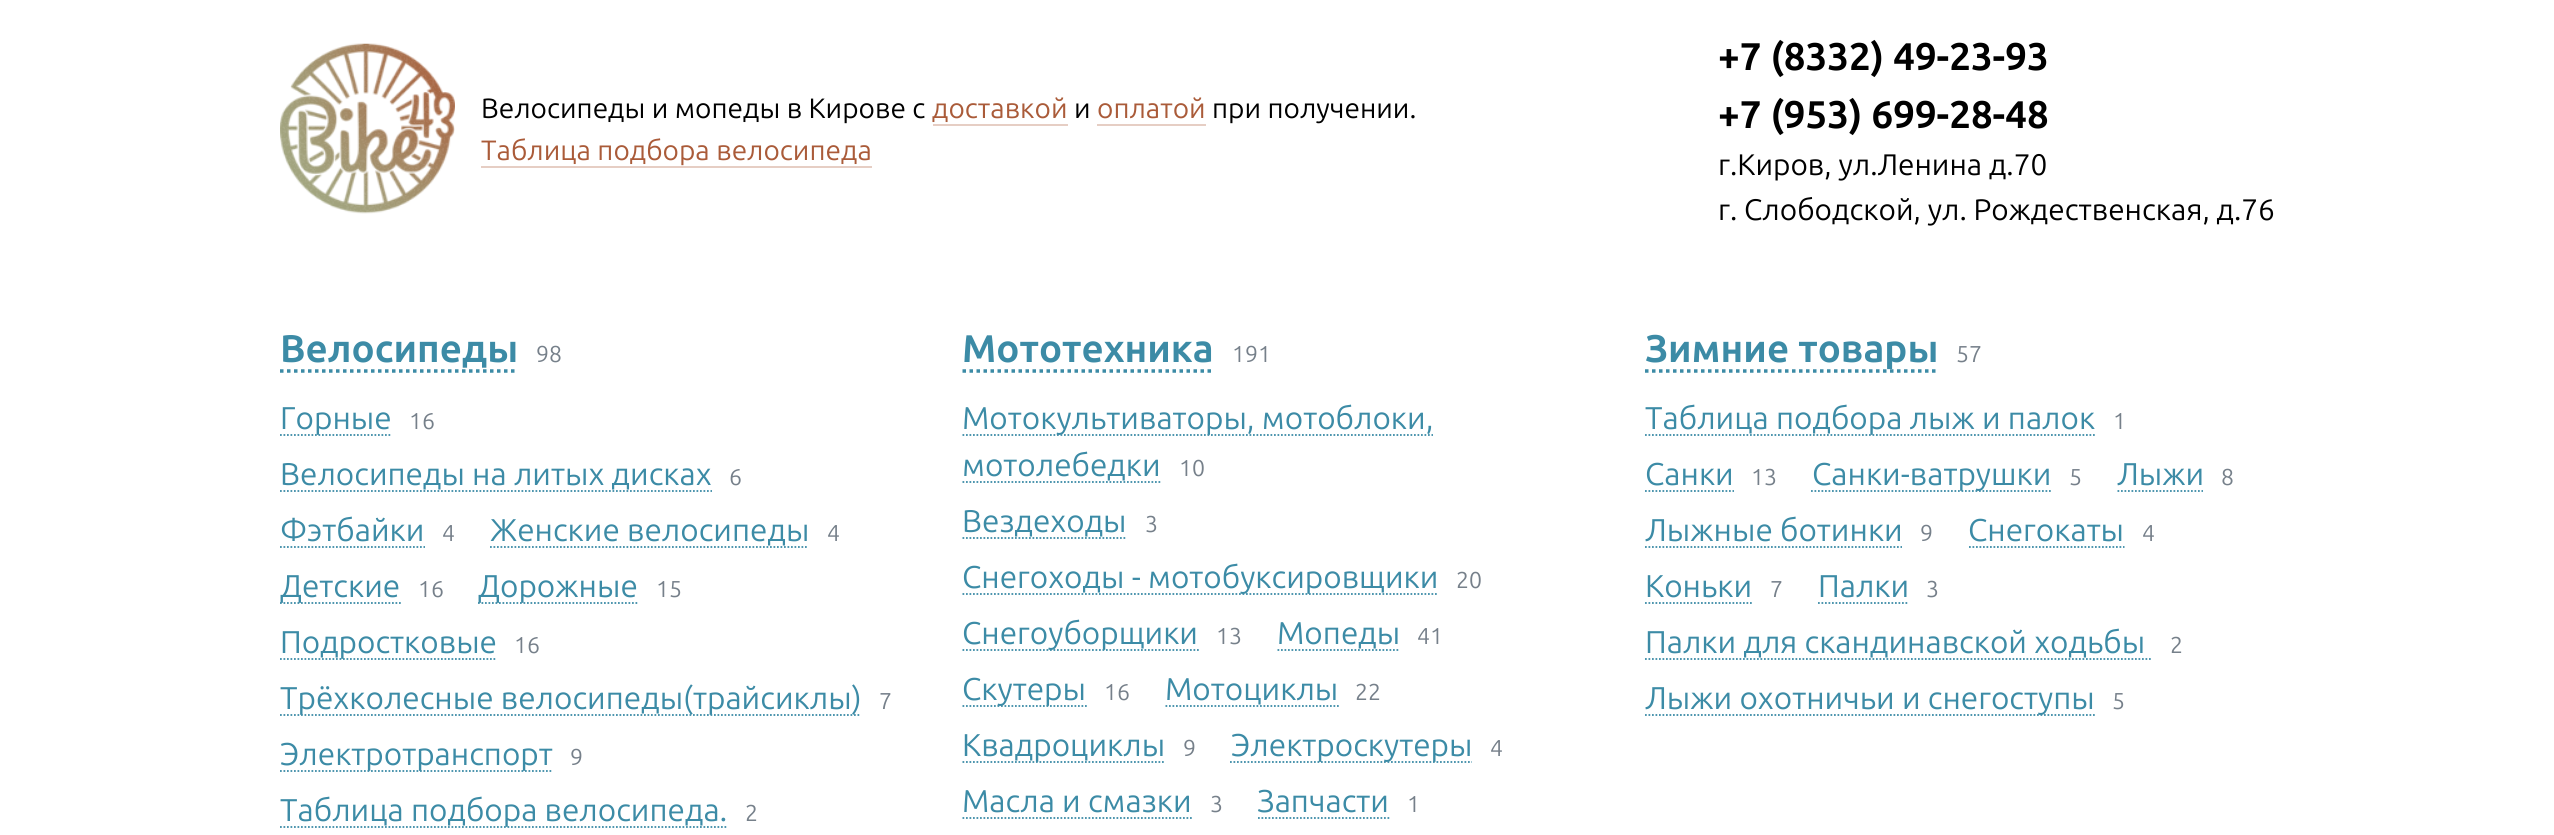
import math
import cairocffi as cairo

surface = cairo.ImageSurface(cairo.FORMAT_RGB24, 2554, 835)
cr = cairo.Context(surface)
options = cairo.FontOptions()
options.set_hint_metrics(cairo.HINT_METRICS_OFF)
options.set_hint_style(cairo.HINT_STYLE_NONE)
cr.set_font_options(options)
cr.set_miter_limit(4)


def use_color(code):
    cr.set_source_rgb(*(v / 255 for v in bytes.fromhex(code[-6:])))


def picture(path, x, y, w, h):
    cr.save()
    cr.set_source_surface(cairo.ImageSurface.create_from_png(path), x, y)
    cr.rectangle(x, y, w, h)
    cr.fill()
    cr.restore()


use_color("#ffffff")
cr.paint()
picture("img1.png", 280, 43, 175, 171)
cr.select_font_face("Ubuntu")
cr.set_font_size(28)
use_color("#000000")
cr.move_to(481, 118)
cr.show_text("Велосипеды и мопеды в Кирове с")
use_color("#aa5b39")
cr.move_to(932, 118)
cr.show_text("доставкой")
use_color("#e6cec4")
cr.rectangle(933, 124, 135, 2)
cr.fill()
use_color("#000000")
cr.move_to(1074, 118)
cr.show_text("и")
use_color("#aa5b39")
cr.move_to(1097, 118)
cr.show_text("оплатой")
use_color("#e6cec4")
cr.rectangle(1097, 124, 109, 2)
cr.fill()
use_color("#000000")
cr.move_to(1212, 118)
cr.show_text("при получении.")
use_color("#aa5b39")
cr.move_to(481, 160)
cr.show_text("Таблица подбора велосипеда")
use_color("#e6cec4")
cr.rectangle(481, 166, 391, 2)
cr.fill()
cr.select_font_face("Ubuntu", cairo.FONT_SLANT_NORMAL, cairo.FONT_WEIGHT_BOLD)
cr.set_font_size(38.5)
use_color("#000000")
cr.move_to(1718, 70)
cr.show_text("+7 (8332) 49-23-93")
cr.move_to(1718, 128)
cr.show_text("+7 (953) 699-28-48")
cr.select_font_face("Ubuntu")
cr.set_font_size(29.75)
cr.move_to(1718, 175)
cr.show_text("г.Киров, ул.Ленина д.70")
cr.move_to(1718, 220)
cr.show_text("г. Слободской, ул. Рождественская, д.76")
cr.select_font_face("Ubuntu", cairo.FONT_SLANT_NORMAL, cairo.FONT_WEIGHT_BOLD)
cr.set_font_size(38.5)
use_color("#3c8ba6")
cr.move_to(280, 362)
cr.show_text("Велосипеды")
cr.new_path()
cr.move_to(280, 371)
cr.line_to(518, 371)
cr.set_line_width(3.5)
cr.set_dash([3.5, 3.5])
cr.stroke()
cr.select_font_face("Ubuntu")
cr.set_font_size(23)
use_color("#76808a")
cr.move_to(536, 362)
cr.show_text("98")
cr.new_path()
cr.move_to(280, 435)
cr.line_to(392, 435)
use_color("#3c8ba6")
cr.set_line_width(1.8)
cr.set_dash([1.75, 1.75])
cr.stroke()
cr.set_font_size(31.5)
cr.move_to(280, 429)
cr.show_text("Горные")
cr.set_font_size(23)
use_color("#76808a")
cr.move_to(409, 429)
cr.show_text("16")
cr.set_font_size(31.5)
use_color("#3c8ba6")
cr.move_to(280, 485)
cr.show_text("Велосипеды на литых дисках")
cr.new_path()
cr.move_to(280, 491)
cr.line_to(712, 491)
cr.stroke()
cr.set_font_size(23)
use_color("#76808a")
cr.move_to(729, 485)
cr.show_text("6")
cr.set_font_size(31.5)
use_color("#3c8ba6")
cr.move_to(280, 541)
cr.show_text("Фэтбайки")
cr.new_path()
cr.move_to(280, 547)
cr.line_to(425, 547)
cr.stroke()
cr.set_font_size(23)
use_color("#76808a")
cr.move_to(442, 541)
cr.show_text("4")
cr.set_font_size(31.5)
use_color("#3c8ba6")
cr.move_to(490, 541)
cr.show_text("Женские велосипеды")
cr.new_path()
cr.move_to(490, 547)
cr.line_to(808.5, 547)
cr.stroke()
cr.set_font_size(23)
use_color("#76808a")
cr.move_to(827, 541)
cr.show_text("4")
cr.new_path()
cr.move_to(280, 603)
cr.line_to(401, 603)
use_color("#3c8ba6")
cr.stroke()
cr.set_font_size(31.5)
cr.move_to(280, 597)
cr.show_text("Детские")
cr.set_font_size(23)
use_color("#76808a")
cr.move_to(418, 597)
cr.show_text("16")
cr.new_path()
cr.move_to(478, 603)
cr.line_to(639, 603)
use_color("#3c8ba6")
cr.stroke()
cr.set_font_size(31.5)
cr.move_to(478, 597)
cr.show_text("Дорожные")
cr.set_font_size(23)
use_color("#76808a")
cr.move_to(656, 597)
cr.show_text("15")
cr.new_path()
cr.move_to(280, 659)
cr.line_to(497, 659)
use_color("#3c8ba6")
cr.stroke()
cr.set_font_size(31.5)
cr.move_to(280, 653)
cr.show_text("Подростковые")
cr.set_font_size(23)
use_color("#76808a")
cr.move_to(514, 653)
cr.show_text("16")
cr.new_path()
cr.move_to(280, 715)
cr.line_to(861, 715)
use_color("#3c8ba6")
cr.stroke()
cr.set_font_size(31.5)
cr.move_to(280, 709)
cr.show_text("Трёхколесные велосипеды(трайсиклы)")
cr.set_font_size(23)
use_color("#76808a")
cr.move_to(879, 709)
cr.show_text("7")
cr.new_path()
cr.move_to(280, 771)
cr.line_to(553, 771)
use_color("#3c8ba6")
cr.stroke()
cr.set_font_size(31.5)
cr.move_to(280, 765)
cr.show_text("Электротранспорт")
cr.set_font_size(23)
use_color("#76808a")
cr.move_to(570, 765)
cr.show_text("9")
cr.new_path()
cr.move_to(280, 827)
cr.line_to(728, 827)
use_color("#3c8ba6")
cr.stroke()
cr.set_font_size(31.5)
cr.move_to(280, 821)
cr.show_text("Таблица подбора велосипеда.")
cr.set_font_size(23)
use_color("#76808a")
cr.move_to(745, 821)
cr.show_text("2")
cr.select_font_face("Ubuntu", cairo.FONT_SLANT_NORMAL, cairo.FONT_WEIGHT_BOLD)
cr.set_font_size(38.5)
use_color("#3c8ba6")
cr.move_to(962, 362)
cr.show_text("Мототехника")
cr.new_path()
cr.move_to(962.5, 371)
cr.line_to(1214.5, 371)
cr.set_line_width(3.5)
cr.set_dash([3.5, 3.5])
cr.stroke()
cr.select_font_face("Ubuntu")
cr.set_font_size(23)
use_color("#76808a")
cr.move_to(1232, 362)
cr.show_text("191")
cr.new_path()
cr.move_to(962.5, 435)
cr.line_to(1433, 435)
use_color("#3c8ba6")
cr.set_line_width(1.8)
cr.set_dash([1.75, 1.75])
cr.stroke()
cr.set_font_size(31.5)
cr.move_to(962, 429)
cr.show_text("Мотокультиваторы, мотоблоки,")
cr.move_to(962, 476)
cr.show_text("мотолебедки")
cr.new_path()
cr.move_to(962.5, 482)
cr.line_to(1162, 482)
cr.stroke()
cr.set_font_size(23)
use_color("#76808a")
cr.move_to(1179, 476)
cr.show_text("10")
cr.set_font_size(31.5)
use_color("#3c8ba6")
cr.move_to(962, 532)
cr.show_text("Вездеходы")
cr.new_path()
cr.move_to(962.5, 538)
cr.line_to(1127, 538)
cr.stroke()
cr.set_font_size(23)
use_color("#76808a")
cr.move_to(1145, 532)
cr.show_text("3")
cr.new_path()
cr.move_to(962.5, 594)
cr.line_to(1438.5, 594)
use_color("#3c8ba6")
cr.stroke()
cr.set_font_size(31.5)
cr.move_to(962, 588)
cr.show_text("Снегоходы - мотобуксировщики")
cr.set_font_size(23)
use_color("#76808a")
cr.move_to(1456, 588)
cr.show_text("20")
cr.new_path()
cr.move_to(962.5, 650)
cr.line_to(1199, 650)
use_color("#3c8ba6")
cr.stroke()
cr.set_font_size(31.5)
cr.move_to(962, 644)
cr.show_text("Снегоуборщики")
cr.set_font_size(23)
use_color("#76808a")
cr.move_to(1216, 644)
cr.show_text("13")
cr.set_font_size(31.5)
use_color("#3c8ba6")
cr.move_to(1277, 644)
cr.show_text("Мопеды")
cr.new_path()
cr.move_to(1277.5, 650)
cr.line_to(1400, 650)
cr.stroke()
cr.set_font_size(23)
use_color("#76808a")
cr.move_to(1417, 644)
cr.show_text("41")
cr.new_path()
cr.move_to(962.5, 706)
cr.line_to(1087, 706)
use_color("#3c8ba6")
cr.stroke()
cr.set_font_size(31.5)
cr.move_to(962, 700)
cr.show_text("Скутеры")
cr.set_font_size(23)
use_color("#76808a")
cr.move_to(1104, 700)
cr.show_text("16")
cr.set_font_size(31.5)
use_color("#3c8ba6")
cr.move_to(1165, 700)
cr.show_text("Мотоциклы")
cr.new_path()
cr.move_to(1165.5, 706)
cr.line_to(1339, 706)
cr.stroke()
cr.set_font_size(23)
use_color("#76808a")
cr.move_to(1355, 700)
cr.show_text("22")
cr.new_path()
cr.move_to(962.5, 762)
cr.line_to(1165.5, 762)
use_color("#3c8ba6")
cr.stroke()
cr.set_font_size(31.5)
cr.move_to(962, 756)
cr.show_text("Квадроциклы")
cr.set_font_size(23)
use_color("#76808a")
cr.move_to(1183, 756)
cr.show_text("9")
cr.new_path()
cr.move_to(1230, 762)
cr.line_to(1472, 762)
use_color("#3c8ba6")
cr.stroke()
cr.set_font_size(31.5)
cr.move_to(1231, 756)
cr.show_text("Электроскутеры")
cr.set_font_size(23)
use_color("#76808a")
cr.move_to(1490, 756)
cr.show_text("4")
cr.set_font_size(31.5)
use_color("#3c8ba6")
cr.move_to(962, 812)
cr.show_text("Масла и смазки")
cr.new_path()
cr.move_to(962.5, 818)
cr.line_to(1192, 818)
cr.stroke()
cr.set_font_size(23)
use_color("#76808a")
cr.move_to(1210, 812)
cr.show_text("3")
cr.set_font_size(31.5)
use_color("#3c8ba6")
cr.move_to(1257, 812)
cr.show_text("Запчасти")
cr.new_path()
cr.move_to(1258, 818)
cr.line_to(1389.5, 818)
cr.stroke()
cr.set_font_size(23)
use_color("#76808a")
cr.move_to(1407, 812)
cr.show_text("1")
cr.new_path()
cr.move_to(1645, 371)
cr.line_to(1939, 371)
use_color("#3c8ba6")
cr.set_line_width(3.5)
cr.set_dash([3.5, 3.5])
cr.stroke()
cr.select_font_face("Ubuntu", cairo.FONT_SLANT_NORMAL, cairo.FONT_WEIGHT_BOLD)
cr.set_font_size(38.5)
cr.move_to(1645, 362)
cr.show_text("Зимние товары")
cr.select_font_face("Ubuntu")
cr.set_font_size(23)
use_color("#76808a")
cr.move_to(1956, 362)
cr.show_text("57")
cr.new_path()
cr.move_to(1645, 435)
cr.line_to(2095, 435)
use_color("#3c8ba6")
cr.set_line_width(1.8)
cr.set_dash([1.75, 1.75])
cr.stroke()
cr.set_font_size(31.5)
cr.move_to(1645, 429)
cr.show_text("Таблица подбора лыж и палок")
cr.set_font_size(23)
use_color("#76808a")
cr.move_to(2113, 429)
cr.show_text("1")
cr.set_font_size(31.5)
use_color("#3c8ba6")
cr.move_to(1645, 485)
cr.show_text("Санки")
cr.new_path()
cr.move_to(1645, 491)
cr.line_to(1734, 491)
cr.stroke()
cr.set_font_size(23)
use_color("#76808a")
cr.move_to(1751, 485)
cr.show_text("13")
cr.new_path()
cr.move_to(1811, 491)
cr.line_to(2051, 491)
use_color("#3c8ba6")
cr.stroke()
cr.set_font_size(31.5)
cr.move_to(1812, 485)
cr.show_text("Санки-ватрушки")
cr.set_font_size(23)
use_color("#76808a")
cr.move_to(2069, 485)
cr.show_text("5")
cr.set_font_size(31.5)
use_color("#3c8ba6")
cr.move_to(2117, 485)
cr.show_text("Лыжи")
cr.new_path()
cr.move_to(2117.5, 491)
cr.line_to(2203, 491)
cr.stroke()
cr.set_font_size(23)
use_color("#76808a")
cr.move_to(2221, 485)
cr.show_text("8")
cr.set_font_size(31.5)
use_color("#3c8ba6")
cr.move_to(1645, 541)
cr.show_text("Лыжные ботинки")
cr.new_path()
cr.move_to(1645, 547)
cr.line_to(1902, 547)
cr.stroke()
cr.set_font_size(23)
use_color("#76808a")
cr.move_to(1920, 541)
cr.show_text("9")
cr.set_font_size(31.5)
use_color("#3c8ba6")
cr.move_to(1968, 541)
cr.show_text("Снегокаты")
cr.new_path()
cr.move_to(1969, 547)
cr.line_to(2124.5, 547)
cr.stroke()
cr.set_font_size(23)
use_color("#76808a")
cr.move_to(2142, 541)
cr.show_text("4")
cr.set_font_size(31.5)
use_color("#3c8ba6")
cr.move_to(1645, 597)
cr.show_text("Коньки")
cr.new_path()
cr.move_to(1645, 603)
cr.line_to(1752, 603)
cr.stroke()
cr.set_font_size(23)
use_color("#76808a")
cr.move_to(1770, 597)
cr.show_text("7")
cr.set_font_size(31.5)
use_color("#3c8ba6")
cr.move_to(1818, 597)
cr.show_text("Палки")
cr.new_path()
cr.move_to(1818, 603)
cr.line_to(1909, 603)
cr.stroke()
cr.set_font_size(23)
use_color("#76808a")
cr.move_to(1926, 597)
cr.show_text("3")
cr.set_font_size(31.5)
use_color("#3c8ba6")
cr.move_to(1645, 653)
cr.show_text("Палки для скандинавской ходьбы")
cr.new_path()
cr.move_to(1645, 659)
cr.line_to(2152.5, 659)
cr.stroke()
cr.set_font_size(23)
use_color("#76808a")
cr.move_to(2170, 653)
cr.show_text("2")
cr.new_path()
cr.move_to(1645, 715)
cr.line_to(2095, 715)
use_color("#3c8ba6")
cr.stroke()
cr.set_font_size(31.5)
cr.move_to(1645, 709)
cr.show_text("Лыжи охотничьи и снегоступы")
cr.set_font_size(23)
use_color("#76808a")
cr.move_to(2112, 709)
cr.show_text("5")
surface.write_to_png("result.png")
